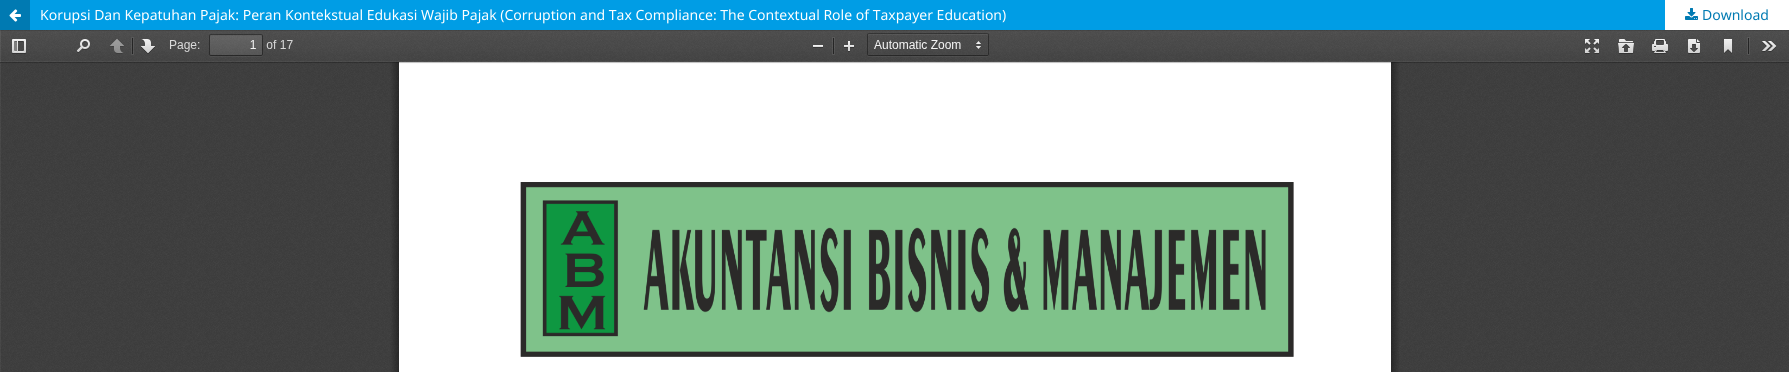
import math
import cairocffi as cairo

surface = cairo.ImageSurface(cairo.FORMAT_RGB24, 1789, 372)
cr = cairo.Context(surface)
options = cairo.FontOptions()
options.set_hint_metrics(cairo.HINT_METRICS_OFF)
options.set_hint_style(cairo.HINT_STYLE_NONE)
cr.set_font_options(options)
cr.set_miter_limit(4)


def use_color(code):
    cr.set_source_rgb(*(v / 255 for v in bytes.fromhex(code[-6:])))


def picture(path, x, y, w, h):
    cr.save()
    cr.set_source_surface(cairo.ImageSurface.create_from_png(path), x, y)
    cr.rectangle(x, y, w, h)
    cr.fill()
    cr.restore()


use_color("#ffffff")
cr.paint()
use_color("#009de5")
cr.rectangle(30, 0, 1635, 30)
cr.fill()
use_color("#007ab2")
cr.rectangle(0, 0, 30, 30)
cr.fill()
picture("img1.png", 9, 9, 12, 13)
cr.select_font_face("Noto Sans")
cr.set_font_size(14)
use_color("#ffffff")
cr.move_to(40, 20)
cr.show_text("Korupsi Dan Kepatuhan Pajak: Peran Kontekstual Edukasi Wajib Pajak (Corruption and Tax Compliance: The Contextual Role of Taxpayer Education)")
picture("img2.png", 1685, 8, 13, 12)
use_color("#007ab2")
cr.move_to(1702, 20)
cr.show_text("Download")
picture("img3.png", 0, 30, 1789, 342)
surface.write_to_png("result.png")
